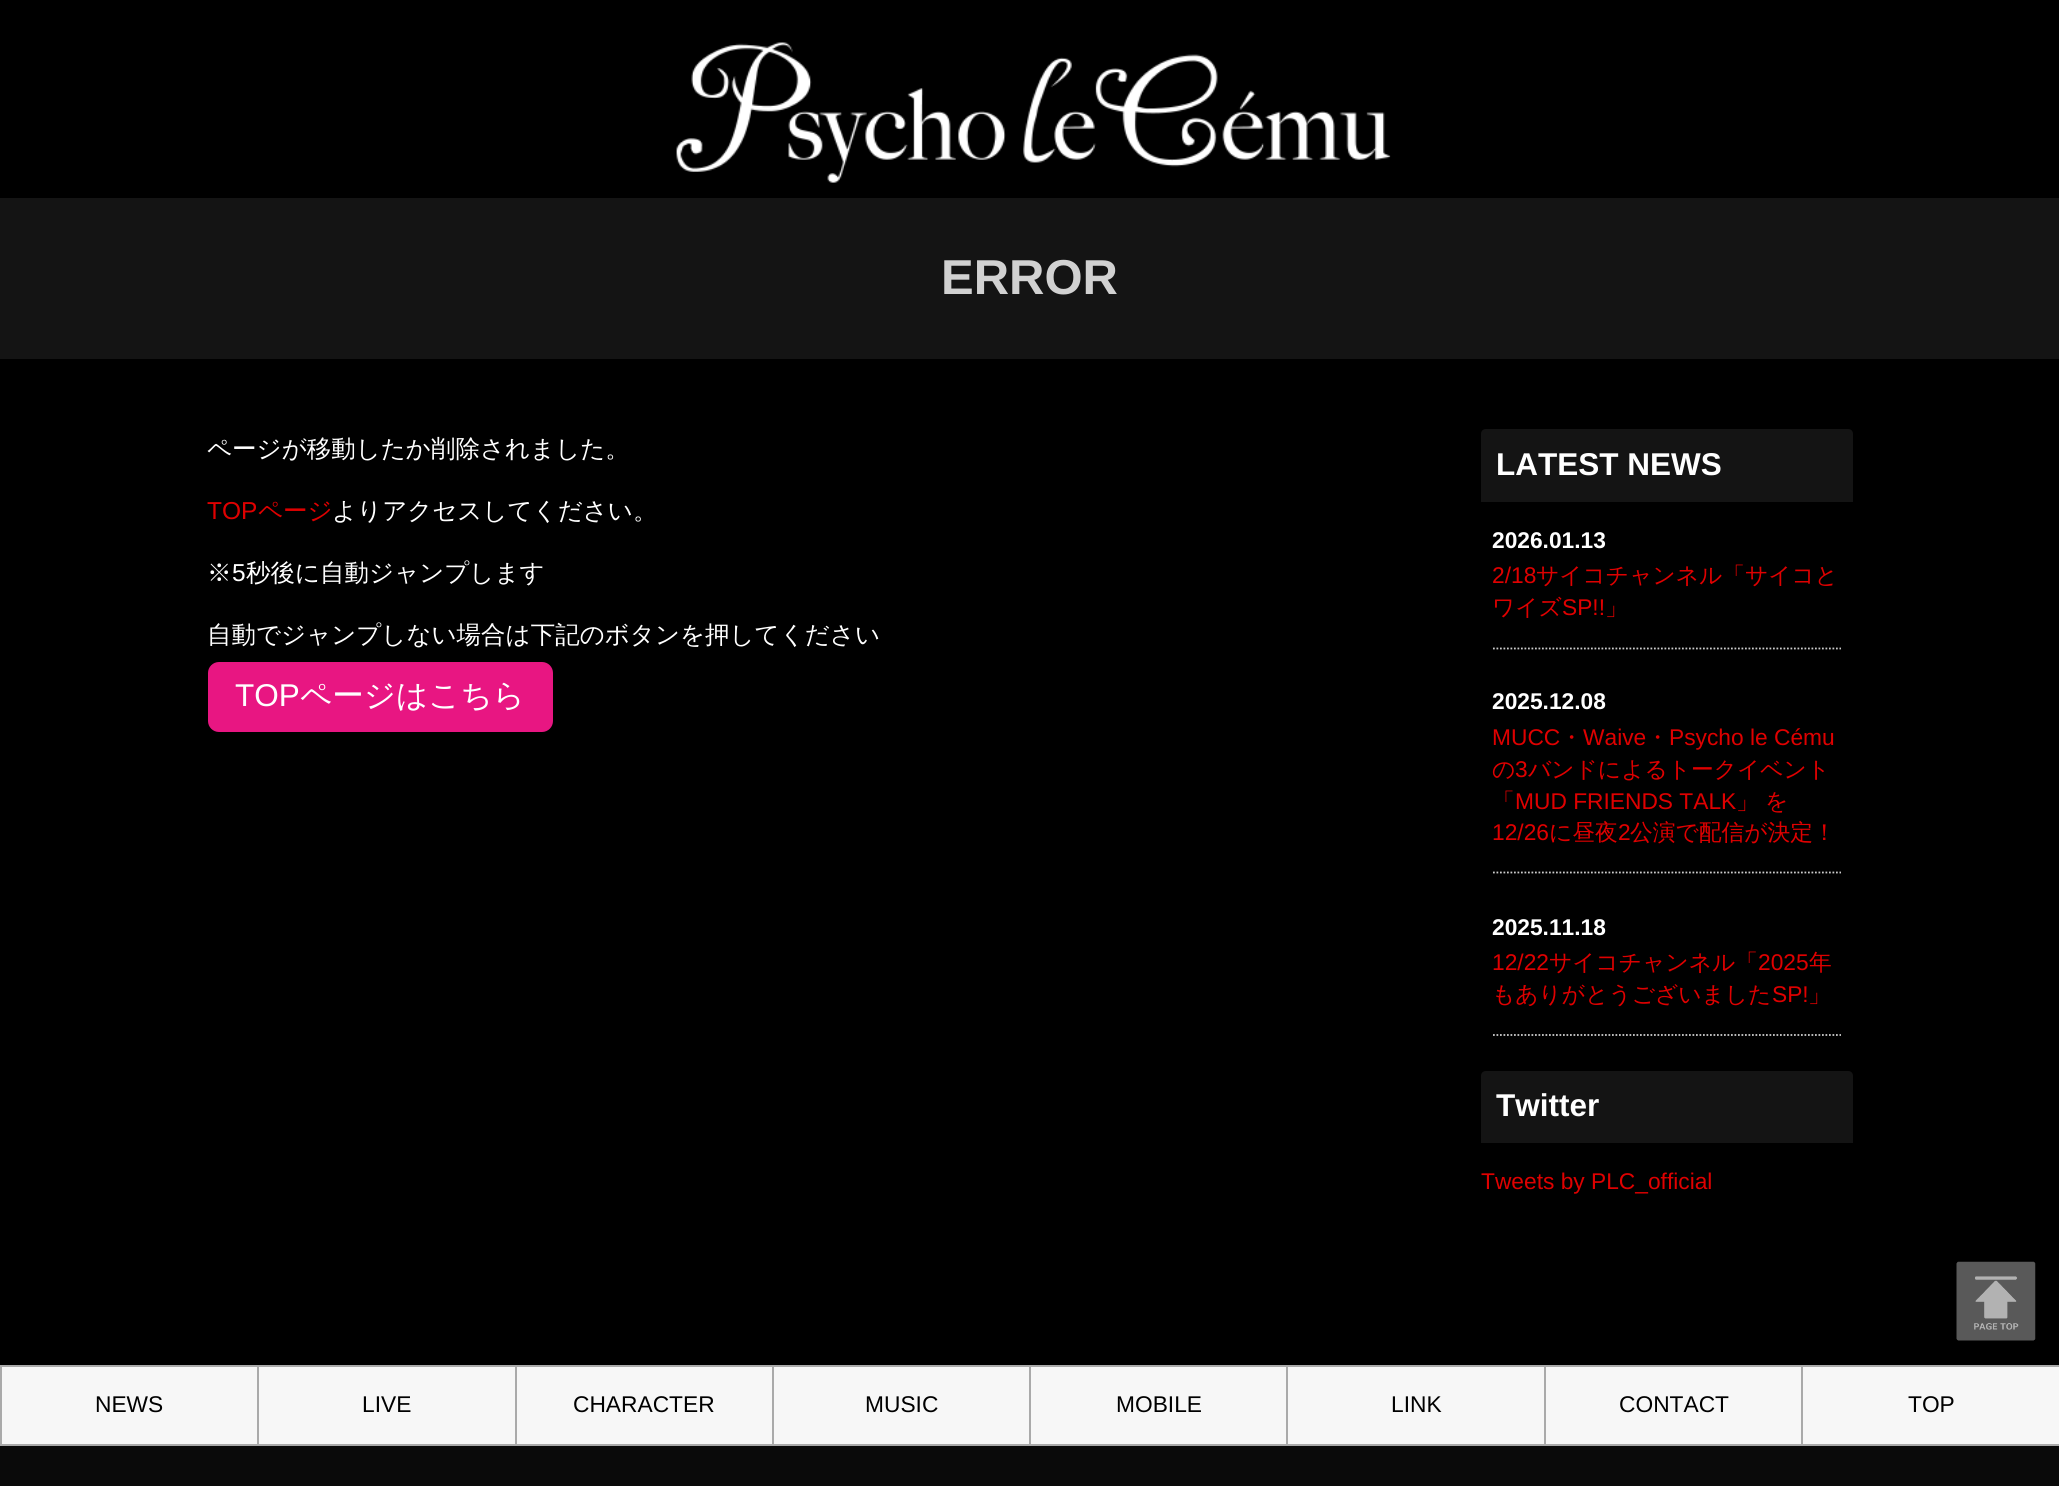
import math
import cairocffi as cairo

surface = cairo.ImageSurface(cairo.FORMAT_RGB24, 2059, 1486)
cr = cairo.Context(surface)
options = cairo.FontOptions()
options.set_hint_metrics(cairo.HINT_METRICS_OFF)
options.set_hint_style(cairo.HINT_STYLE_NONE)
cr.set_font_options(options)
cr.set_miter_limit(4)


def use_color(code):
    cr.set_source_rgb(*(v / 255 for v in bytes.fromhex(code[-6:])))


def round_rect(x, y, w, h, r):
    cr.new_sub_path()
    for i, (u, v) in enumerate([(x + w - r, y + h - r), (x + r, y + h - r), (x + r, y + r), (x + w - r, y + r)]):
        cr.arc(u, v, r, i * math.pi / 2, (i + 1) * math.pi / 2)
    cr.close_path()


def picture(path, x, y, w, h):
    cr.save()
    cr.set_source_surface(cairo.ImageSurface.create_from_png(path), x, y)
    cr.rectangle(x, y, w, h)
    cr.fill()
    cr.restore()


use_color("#000000")
cr.paint()
picture("img1.png", 676, 42, 715, 141)
use_color("#141414")
cr.rectangle(0, 198, 2059, 161)
cr.fill()
cr.select_font_face("Liberation Sans", cairo.FONT_SLANT_NORMAL, cairo.FONT_WEIGHT_BOLD)
cr.set_font_size(49)
use_color("#d1d1d1")
cr.move_to(941, 294)
cr.show_text("ERROR")
cr.select_font_face("WenQuanYi Zen Hei Medium")
cr.set_font_size(24.5)
use_color("#ffffff")
cr.move_to(207, 457)
cr.show_text("ページが移動したか削除されました。")
cr.select_font_face("Liberation Sans")
use_color("#df0000")
cr.move_to(207, 519)
cr.show_text("TOP")
cr.select_font_face("WenQuanYi Zen Hei Medium")
cr.move_to(258, 519)
cr.show_text("ページ")
use_color("#ffffff")
cr.move_to(332, 519)
cr.show_text("よりアクセスしてください。")
cr.move_to(207, 581)
cr.show_text("※")
cr.select_font_face("Liberation Sans")
cr.move_to(232, 581)
cr.show_text("5")
cr.select_font_face("WenQuanYi Zen Hei Medium")
cr.move_to(246, 581)
cr.show_text("秒後に自動ジャンプします")
cr.move_to(207, 643)
cr.show_text("自動でジャンプしない場合は下記のボタンを押してください")
use_color("#e81682")
round_rect(208, 662, 345, 70, 11)
cr.fill()
cr.select_font_face("Liberation Sans")
cr.set_font_size(31.5)
use_color("#ffffff")
cr.move_to(235, 706)
cr.show_text("TOP")
cr.select_font_face("WenQuanYi Zen Hei Medium")
cr.move_to(300, 706)
cr.show_text("ページはこちら")
use_color("#141414")
cr.new_path()
cr.move_to(1486, 429)
cr.line_to(1848, 429)
cr.curve_to(1851, 429, 1853, 431, 1853, 434)
cr.line_to(1853, 502)
cr.line_to(1481, 502)
cr.line_to(1481, 434)
cr.curve_to(1481, 431, 1483, 429, 1486, 429)
cr.close_path()
cr.fill()
cr.select_font_face("Liberation Sans", cairo.FONT_SLANT_NORMAL, cairo.FONT_WEIGHT_BOLD)
use_color("#ffffff")
cr.move_to(1496, 475)
cr.show_text("LATEST NEWS")
cr.set_font_size(22.75)
cr.move_to(1492, 548)
cr.show_text("2026.01.13")
cr.new_path()
cr.move_to(1493, 648.5)
cr.line_to(1841, 648.5)
use_color("#cccccc")
cr.set_line_width(1.8)
cr.set_dash([1.75, 1.75])
cr.stroke()
cr.select_font_face("Liberation Sans")
use_color("#df0000")
cr.move_to(1492, 583)
cr.show_text("2/18")
cr.select_font_face("WenQuanYi Zen Hei Medium")
cr.move_to(1536, 583)
cr.show_text("サイコチャンネル「サイコと")
cr.move_to(1492, 615)
cr.show_text("ワイズ")
cr.select_font_face("Liberation Sans")
cr.move_to(1562, 615)
cr.show_text("SP!!")
cr.select_font_face("WenQuanYi Zen Hei Medium")
cr.move_to(1605, 615)
cr.show_text("」")
cr.select_font_face("Liberation Sans", cairo.FONT_SLANT_NORMAL, cairo.FONT_WEIGHT_BOLD)
use_color("#ffffff")
cr.move_to(1492, 709)
cr.show_text("2025.12.08")
cr.new_path()
cr.move_to(1493, 872.5)
cr.line_to(1841, 872.5)
use_color("#cccccc")
cr.stroke()
cr.select_font_face("Liberation Sans")
use_color("#df0000")
cr.move_to(1492, 745)
cr.show_text("MUCC")
cr.select_font_face("WenQuanYi Zen Hei Medium")
cr.move_to(1560, 745)
cr.show_text("・")
cr.select_font_face("Liberation Sans")
cr.move_to(1583, 745)
cr.show_text("Waive")
cr.select_font_face("WenQuanYi Zen Hei Medium")
cr.move_to(1646, 745)
cr.show_text("・")
cr.select_font_face("Liberation Sans")
cr.move_to(1669, 745)
cr.show_text("Psycho le Cému")
cr.select_font_face("WenQuanYi Zen Hei Medium")
cr.move_to(1492, 777)
cr.show_text("の")
cr.select_font_face("Liberation Sans")
cr.move_to(1515, 777)
cr.show_text("3")
cr.select_font_face("WenQuanYi Zen Hei Medium")
cr.move_to(1528, 777)
cr.show_text("バンドによるトークイベント")
cr.move_to(1492, 809)
cr.show_text("「")
cr.select_font_face("Liberation Sans")
cr.move_to(1515, 809)
cr.show_text("MUD FRIENDS TALK")
cr.select_font_face("WenQuanYi Zen Hei Medium")
cr.move_to(1736, 809)
cr.show_text("」")
cr.move_to(1765, 809)
cr.show_text("を")
cr.select_font_face("Liberation Sans")
cr.move_to(1492, 840)
cr.show_text("12/26")
cr.select_font_face("WenQuanYi Zen Hei Medium")
cr.move_to(1549, 840)
cr.show_text("に昼夜")
cr.select_font_face("Liberation Sans")
cr.move_to(1618, 840)
cr.show_text("2")
cr.select_font_face("WenQuanYi Zen Hei Medium")
cr.move_to(1630, 840)
cr.show_text("公演で配信が決定！")
cr.select_font_face("Liberation Sans", cairo.FONT_SLANT_NORMAL, cairo.FONT_WEIGHT_BOLD)
use_color("#ffffff")
cr.move_to(1492, 935)
cr.show_text("2025.11.18")
cr.new_path()
cr.move_to(1493, 1035)
cr.line_to(1841, 1035)
use_color("#cccccc")
cr.stroke()
cr.select_font_face("Liberation Sans")
use_color("#df0000")
cr.move_to(1492, 970)
cr.show_text("12/22")
cr.select_font_face("WenQuanYi Zen Hei Medium")
cr.move_to(1549, 970)
cr.show_text("サイコチャンネル「")
cr.select_font_face("Liberation Sans")
cr.move_to(1758, 970)
cr.show_text("2025")
cr.select_font_face("WenQuanYi Zen Hei Medium")
cr.move_to(1809, 970)
cr.show_text("年")
cr.move_to(1492, 1002)
cr.show_text("もありがとうございました")
cr.select_font_face("Liberation Sans")
cr.move_to(1772, 1002)
cr.show_text("SP!")
cr.select_font_face("WenQuanYi Zen Hei Medium")
cr.move_to(1808, 1002)
cr.show_text("」")
use_color("#141414")
cr.new_path()
cr.move_to(1486, 1071)
cr.line_to(1848, 1071)
cr.curve_to(1851, 1071, 1853, 1073, 1853, 1076)
cr.line_to(1853, 1143)
cr.line_to(1481, 1143)
cr.line_to(1481, 1076)
cr.curve_to(1481, 1073, 1483, 1071, 1486, 1071)
cr.close_path()
cr.fill()
cr.select_font_face("Liberation Sans", cairo.FONT_SLANT_NORMAL, cairo.FONT_WEIGHT_BOLD)
cr.set_font_size(31.5)
use_color("#ffffff")
cr.move_to(1496, 1116)
cr.show_text("Twitter")
cr.select_font_face("Liberation Sans")
cr.set_font_size(22.75)
use_color("#df0000")
cr.move_to(1481, 1189)
cr.show_text("Tweets by PLC_official")
picture("img2.png", 1956, 1261, 80, 80)
use_color("#aaaaaa")
cr.rectangle(1801, 1365, 258, 2)
cr.fill()
cr.rectangle(1801, 1444, 258, 2)
cr.fill()
cr.rectangle(1801, 1365, 2, 81)
cr.fill()
cr.rectangle(1544, 1365, 259, 2)
cr.fill()
cr.rectangle(1544, 1444, 259, 2)
cr.fill()
cr.rectangle(1544, 1365, 2, 81)
cr.fill()
cr.rectangle(1286, 1365, 259, 2)
cr.fill()
cr.rectangle(1286, 1444, 259, 2)
cr.fill()
cr.rectangle(1286, 1365, 2, 81)
cr.fill()
cr.rectangle(1029, 1365, 259, 2)
cr.fill()
cr.rectangle(1029, 1444, 259, 2)
cr.fill()
cr.rectangle(1029, 1365, 2, 81)
cr.fill()
cr.rectangle(772, 1365, 259, 2)
cr.fill()
cr.rectangle(772, 1444, 259, 2)
cr.fill()
cr.rectangle(772, 1365, 2, 81)
cr.fill()
cr.rectangle(515, 1365, 259, 2)
cr.fill()
cr.rectangle(515, 1444, 259, 2)
cr.fill()
cr.rectangle(515, 1365, 2, 81)
cr.fill()
cr.rectangle(257, 1365, 259, 2)
cr.fill()
cr.rectangle(257, 1444, 259, 2)
cr.fill()
cr.rectangle(257, 1365, 2, 81)
cr.fill()
cr.rectangle(0, 1365, 259, 2)
cr.fill()
cr.rectangle(0, 1444, 259, 2)
cr.fill()
cr.rectangle(0, 1365, 2, 81)
cr.fill()
use_color("#f7f7f7")
cr.rectangle(2, 1367, 255, 77)
cr.fill()
use_color("#000000")
cr.move_to(95, 1412)
cr.show_text("NEWS")
use_color("#f7f7f7")
cr.rectangle(259, 1367, 256, 77)
cr.fill()
use_color("#000000")
cr.move_to(362, 1412)
cr.show_text("LIVE")
use_color("#f7f7f7")
cr.rectangle(517, 1367, 255, 77)
cr.fill()
use_color("#000000")
cr.move_to(573, 1412)
cr.show_text("CHARACTER")
use_color("#f7f7f7")
cr.rectangle(774, 1367, 255, 77)
cr.fill()
use_color("#000000")
cr.move_to(865, 1412)
cr.show_text("MUSIC")
use_color("#f7f7f7")
cr.rectangle(1031, 1367, 255, 77)
cr.fill()
use_color("#000000")
cr.move_to(1116, 1412)
cr.show_text("MOBILE")
use_color("#f7f7f7")
cr.rectangle(1288, 1367, 256, 77)
cr.fill()
use_color("#000000")
cr.move_to(1391, 1412)
cr.show_text("LINK")
use_color("#f7f7f7")
cr.rectangle(1546, 1367, 255, 77)
cr.fill()
use_color("#000000")
cr.move_to(1619, 1412)
cr.show_text("CONTACT")
use_color("#f7f7f7")
cr.rectangle(1803, 1367, 256, 77)
cr.fill()
use_color("#000000")
cr.move_to(1908, 1412)
cr.show_text("TOP")
use_color("#0a0a0a")
cr.rectangle(0, 1446, 2059, 40)
cr.fill()
surface.write_to_png("result.png")
